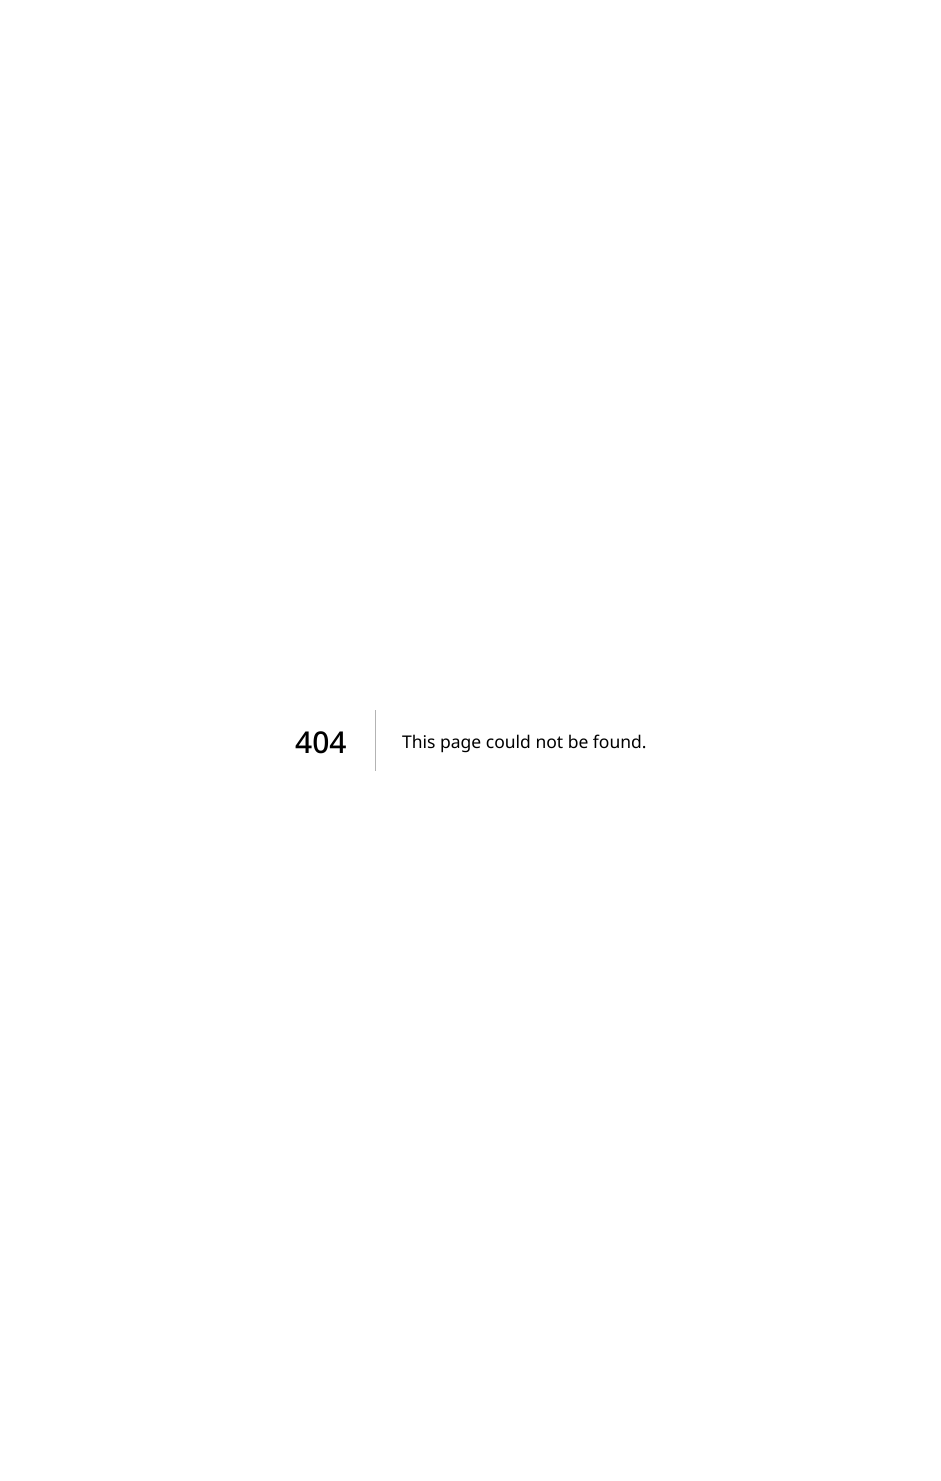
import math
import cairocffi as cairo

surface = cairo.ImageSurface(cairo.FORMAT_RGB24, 941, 1481)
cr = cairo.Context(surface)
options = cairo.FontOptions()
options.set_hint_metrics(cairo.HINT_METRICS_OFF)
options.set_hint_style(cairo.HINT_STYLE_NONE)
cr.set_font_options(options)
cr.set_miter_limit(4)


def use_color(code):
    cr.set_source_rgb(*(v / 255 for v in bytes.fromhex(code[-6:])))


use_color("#ffffff")
cr.paint()
use_color("#b3b3b3")
cr.rectangle(375, 710, 1, 61)
cr.fill()
cr.select_font_face("Noto Sans Medium")
cr.set_font_size(30)
use_color("#000000")
cr.move_to(295, 753)
cr.show_text("404")
cr.select_font_face("Noto Sans")
cr.set_font_size(17.5)
cr.move_to(402, 748)
cr.show_text("This page could not be found.")
surface.write_to_png("result.png")
